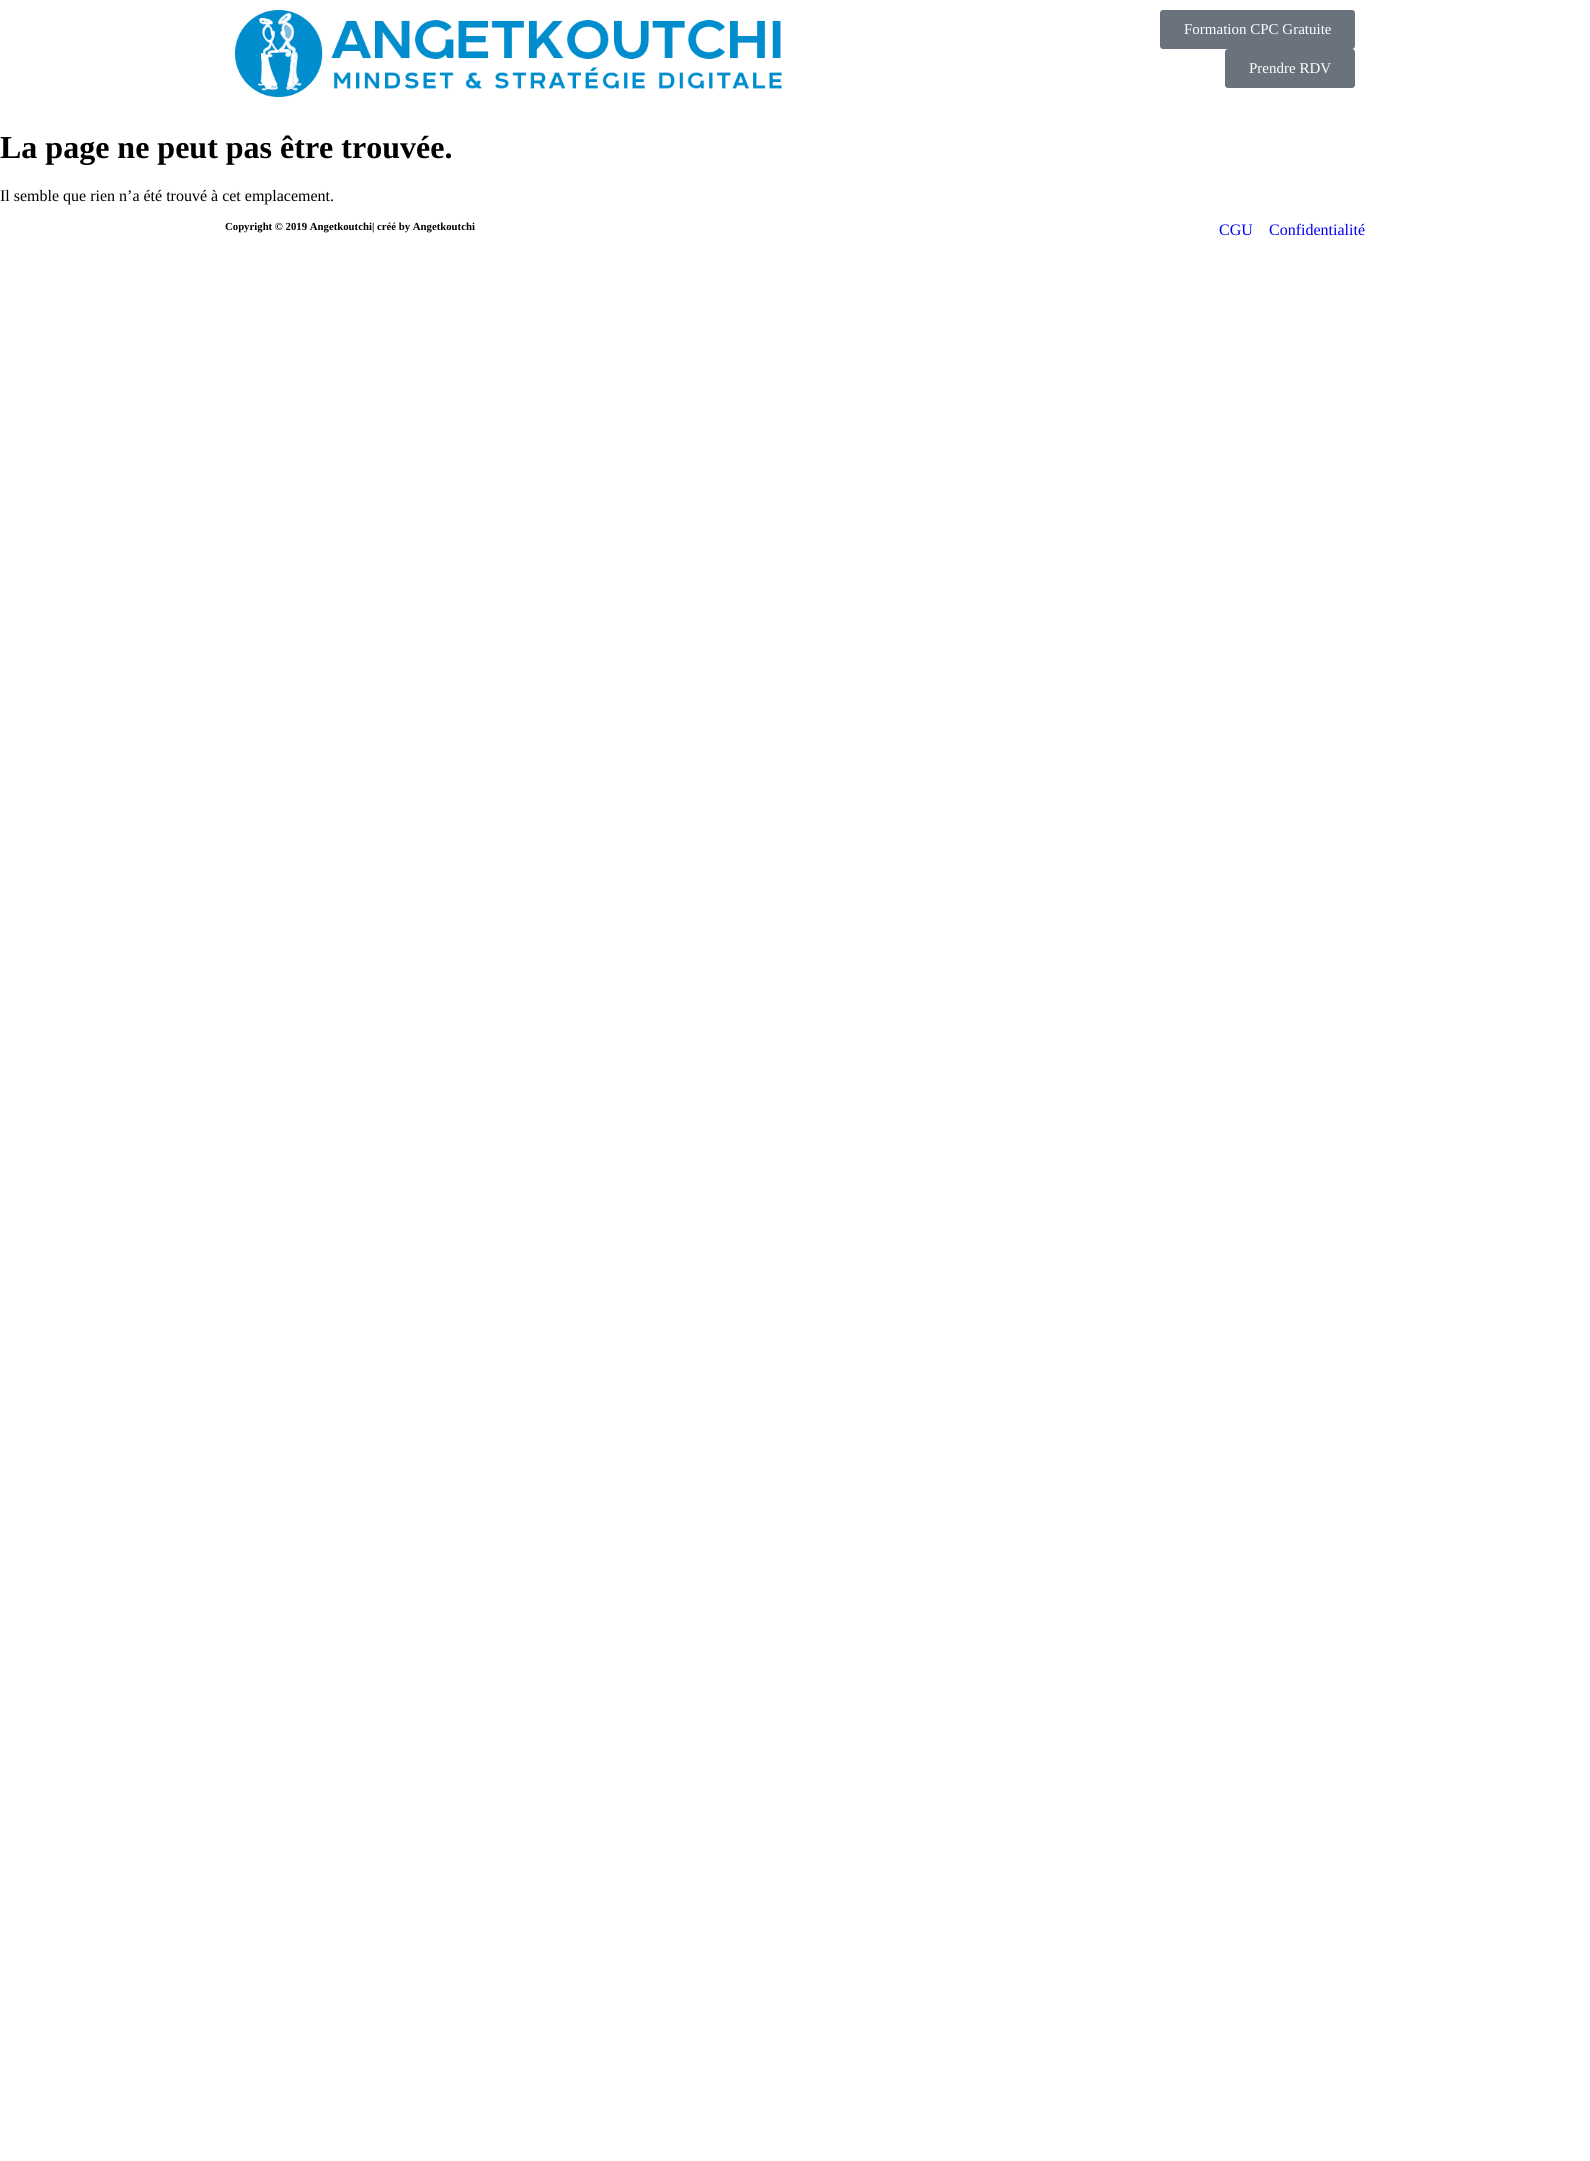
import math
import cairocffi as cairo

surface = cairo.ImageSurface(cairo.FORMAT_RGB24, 1590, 2161)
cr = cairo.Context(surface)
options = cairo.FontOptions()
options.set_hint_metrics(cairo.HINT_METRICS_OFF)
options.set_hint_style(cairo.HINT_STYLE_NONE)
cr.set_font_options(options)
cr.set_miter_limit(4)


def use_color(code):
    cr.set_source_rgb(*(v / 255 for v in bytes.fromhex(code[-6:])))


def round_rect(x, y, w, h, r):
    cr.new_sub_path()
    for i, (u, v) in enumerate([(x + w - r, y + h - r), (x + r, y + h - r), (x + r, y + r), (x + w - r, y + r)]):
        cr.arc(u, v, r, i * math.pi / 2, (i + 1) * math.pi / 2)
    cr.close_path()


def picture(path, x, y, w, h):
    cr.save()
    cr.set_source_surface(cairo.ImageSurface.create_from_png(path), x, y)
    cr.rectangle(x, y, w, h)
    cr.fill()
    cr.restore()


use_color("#ffffff")
cr.paint()
picture("img1.png", 235, 10, 547, 87)
use_color("#69727d")
round_rect(1160, 10, 195, 39, 3)
cr.fill()
cr.select_font_face("Liberation Serif")
cr.set_font_size(15)
use_color("#ffffff")
cr.move_to(1184, 34)
cr.show_text("Formation CPC Gratuite")
use_color("#69727d")
round_rect(1225, 49, 130, 39, 3)
cr.fill()
use_color("#ffffff")
cr.move_to(1249, 73)
cr.show_text("Prendre RDV")
cr.select_font_face("Liberation Serif", cairo.FONT_SLANT_NORMAL, cairo.FONT_WEIGHT_BOLD)
cr.set_font_size(32)
use_color("#000000")
cr.move_to(0, 158)
cr.show_text("La page ne peut pas être trouvée.")
cr.select_font_face("Liberation Serif")
cr.set_font_size(16)
cr.move_to(0, 201)
cr.show_text("Il semble que rien n’a été trouvé à cet emplacement.")
cr.select_font_face("Liberation Serif", cairo.FONT_SLANT_NORMAL, cairo.FONT_WEIGHT_BOLD)
cr.set_font_size(10.75)
cr.move_to(225, 230)
cr.show_text("Copyright © 2019 Angetkoutchi| créé by Angetkoutchi")
cr.select_font_face("Liberation Serif")
cr.set_font_size(16)
use_color("#0000ee")
cr.move_to(1219, 235)
cr.show_text("CGU")
cr.move_to(1269, 235)
cr.show_text("Confidentialité")
surface.write_to_png("result.png")
